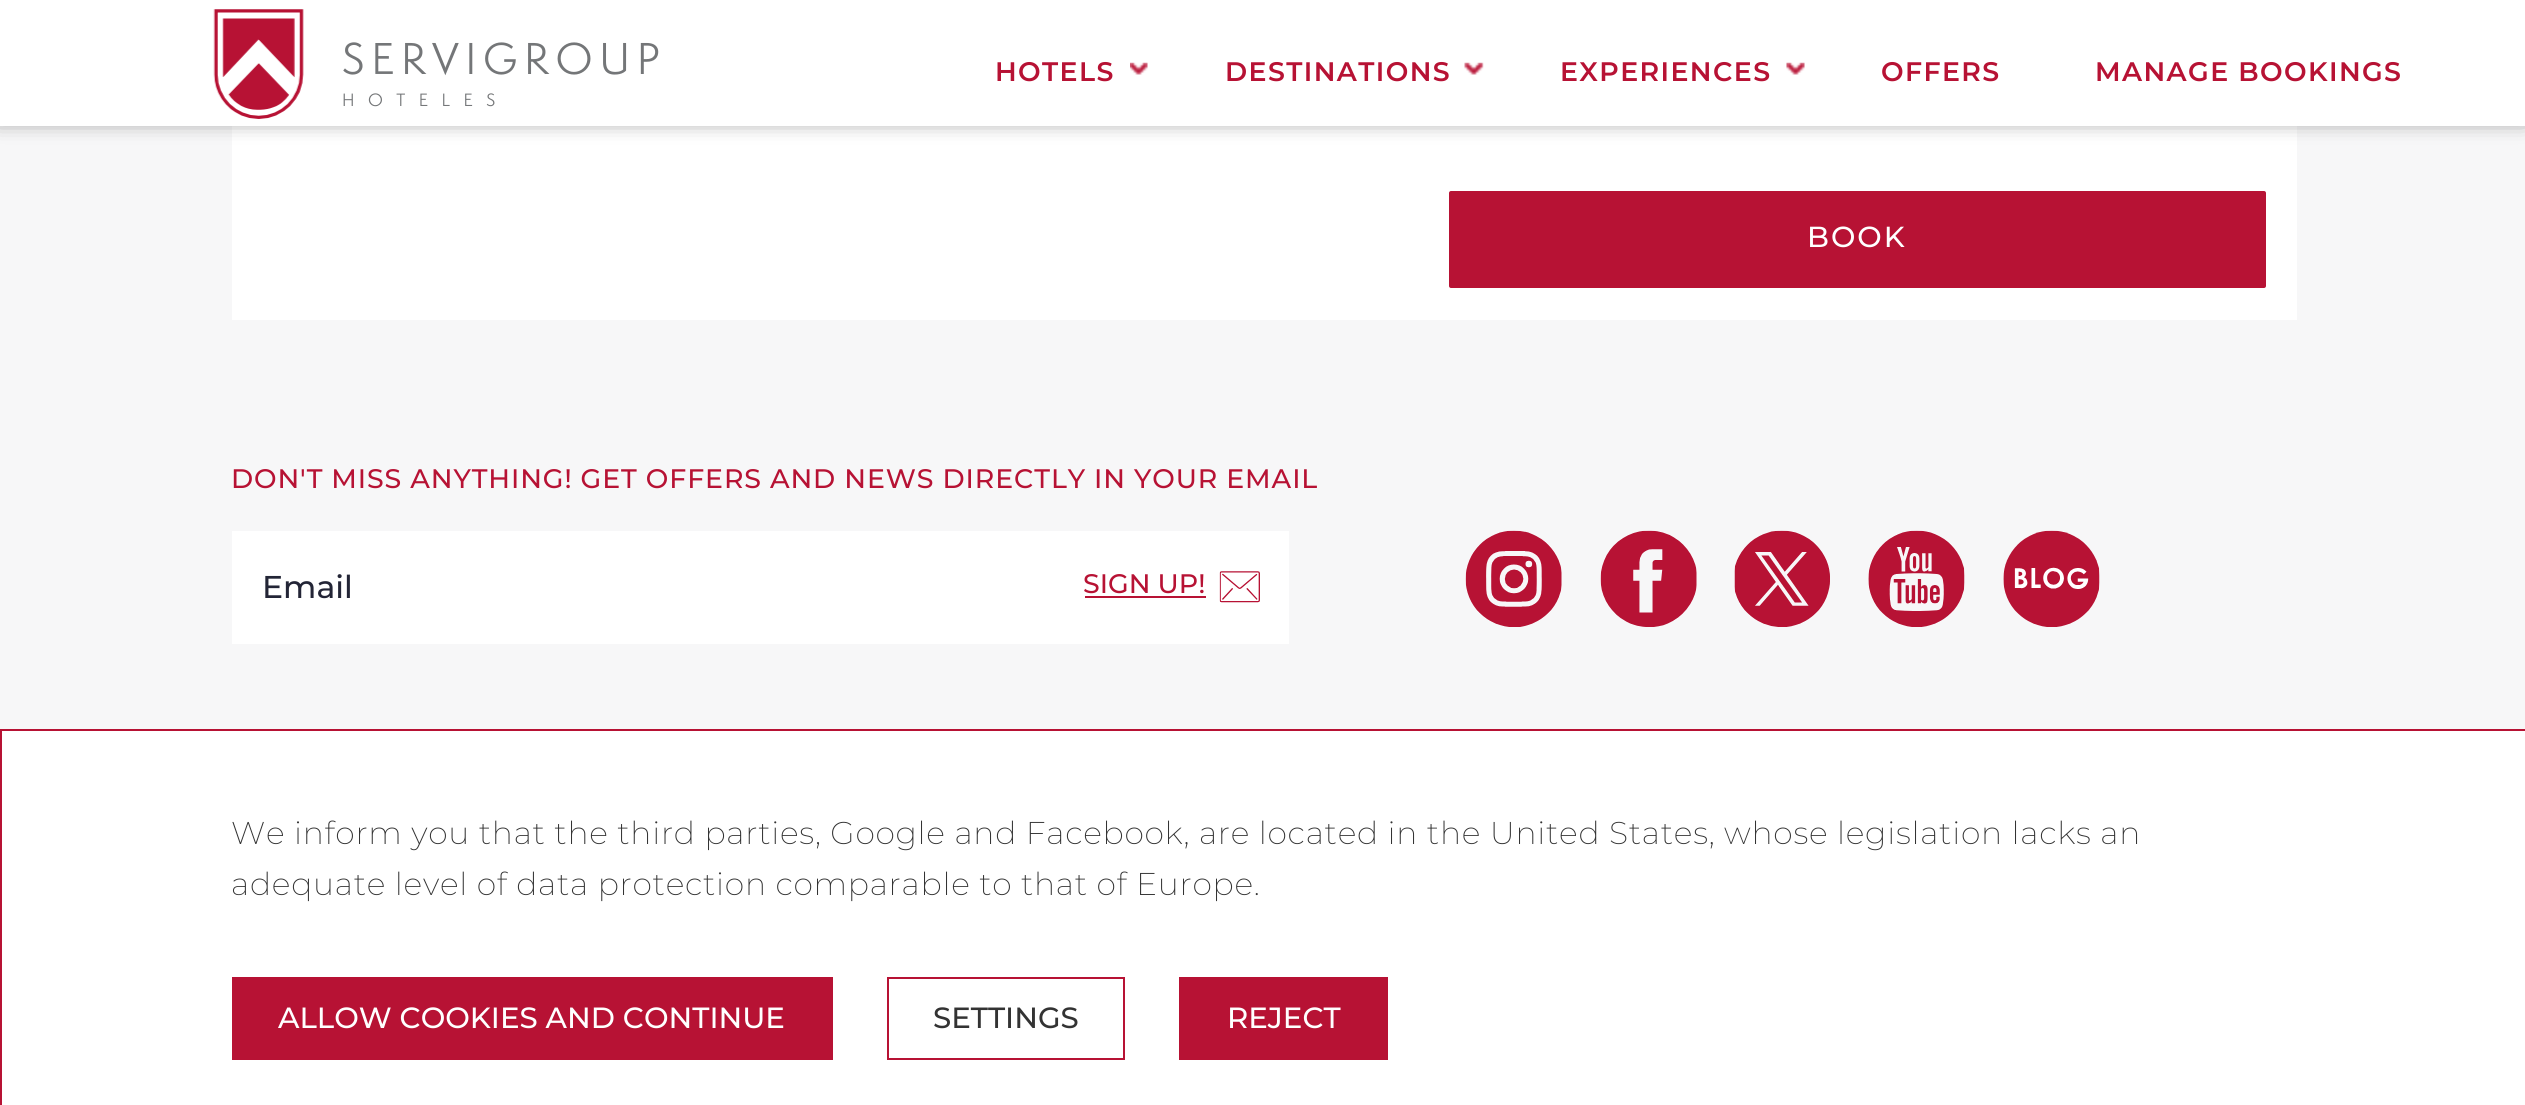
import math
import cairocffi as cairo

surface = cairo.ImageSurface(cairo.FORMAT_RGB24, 2525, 1105)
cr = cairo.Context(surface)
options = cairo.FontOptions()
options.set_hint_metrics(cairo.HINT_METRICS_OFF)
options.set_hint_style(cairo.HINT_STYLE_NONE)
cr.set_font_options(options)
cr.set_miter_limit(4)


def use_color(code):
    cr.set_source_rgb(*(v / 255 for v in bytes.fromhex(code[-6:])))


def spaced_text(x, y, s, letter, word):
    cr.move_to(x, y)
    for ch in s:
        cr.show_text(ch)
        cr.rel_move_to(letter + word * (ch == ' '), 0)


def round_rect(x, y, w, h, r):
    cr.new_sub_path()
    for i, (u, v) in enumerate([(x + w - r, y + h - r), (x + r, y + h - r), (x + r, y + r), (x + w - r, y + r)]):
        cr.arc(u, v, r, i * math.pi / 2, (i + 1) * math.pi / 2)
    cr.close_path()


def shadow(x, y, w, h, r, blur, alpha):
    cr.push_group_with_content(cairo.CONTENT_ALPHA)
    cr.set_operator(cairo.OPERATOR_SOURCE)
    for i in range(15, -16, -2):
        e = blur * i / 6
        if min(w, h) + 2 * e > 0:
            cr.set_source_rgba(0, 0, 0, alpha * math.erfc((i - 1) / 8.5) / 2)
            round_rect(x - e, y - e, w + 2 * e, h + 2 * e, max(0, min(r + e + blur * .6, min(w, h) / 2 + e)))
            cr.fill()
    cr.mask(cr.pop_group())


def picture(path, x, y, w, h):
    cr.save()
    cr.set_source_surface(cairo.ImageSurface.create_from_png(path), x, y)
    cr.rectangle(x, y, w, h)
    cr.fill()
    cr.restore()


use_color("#f7f7f8")
cr.paint()
use_color("#ffffff")
cr.rectangle(232, 126, 2065, 194)
cr.fill()
use_color("#000000")
shadow(-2, -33, 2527, 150, 0, 11, 0.75)
use_color("#ffffff")
cr.rectangle(0, 0, 2525, 126)
cr.fill()
picture("img1.png", 213, 9, 91, 110)
cr.select_font_face("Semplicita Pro")
cr.set_font_size(41)
use_color("#747678")
spaced_text(342, 74, "SERVIGROUP", 6.75, 0)
cr.set_font_size(16.4)
spaced_text(342, 106, "HOTELES", 13.5, 0)
cr.select_font_face("Montserrat SemiBold")
cr.set_font_size(26.8)
use_color("#b71234")
spaced_text(995, 81, "HOTELS", 1.4, 0)
picture("img2.png", 1130, 62, 18, 13)
spaced_text(1225, 81, "DESTINATIONS", 1.4, 0)
picture("img3.png", 1464, 62, 20, 13)
spaced_text(1560, 81, "EXPERIENCES", 1.4, 0)
picture("img4.png", 1786, 62, 19, 13)
spaced_text(1881, 81, "OFFERS", 1.4, 0)
spaced_text(2095, 81, "MANAGE BOOKINGS", 1.4, 0)
round_rect(1450, 192, 815, 95, 1)
cr.fill_preserve()
cr.stroke()
cr.select_font_face("Montserrat Medium")
cr.set_font_size(29)
use_color("#ffffff")
spaced_text(1807, 247, "BOOK", 2, 0)
cr.set_font_size(26.8)
use_color("#b71234")
spaced_text(231, 488, "DON'T MISS ANYTHING! GET OFFERS AND NEWS DIRECTLY IN YOUR EMAIL", 0.9, 0)
use_color("#ffffff")
cr.rectangle(232, 531, 1057, 113)
cr.fill()
cr.set_font_size(31.5)
use_color("#232536")
cr.move_to(262, 598)
cr.show_text("Email")
cr.set_font_size(26.8)
use_color("#b71234")
cr.move_to(1083, 593)
cr.show_text("SIGN UP!")
cr.rectangle(1085, 596, 121, 2)
cr.fill()
picture("img5.png", 1219, 571, 41, 32)
picture("img6.png", 1465, 530, 97, 97)
picture("img7.png", 1600, 530, 97, 97)
picture("img8.png", 1734, 530, 96, 97)
picture("img9.png", 1868, 530, 97, 97)
picture("img10.png", 2003, 530, 97, 97)
use_color("#ffffff")
cr.rectangle(1, 730, 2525, 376)
cr.fill_preserve()
use_color("#b71234")
cr.stroke()
cr.select_font_face("Montserrat ExtraLight")
cr.set_font_size(31.5)
use_color("#333333")
spaced_text(231, 844, "We inform you that the third parties, Google and Facebook, are located in the United States, whose legislation lacks an", 0.72, 0)
spaced_text(231, 895, "adequate level of data protection comparable to that of Europe.", 0.72, 0)
use_color("#b71234")
cr.rectangle(232, 977, 601, 83)
cr.fill()
cr.select_font_face("Montserrat Medium")
cr.set_font_size(29.25)
use_color("#ffffff")
cr.move_to(278, 1028)
cr.show_text("ALLOW COOKIES AND CONTINUE")
cr.rectangle(888, 978, 236, 81)
use_color("#b71234")
cr.stroke()
use_color("#333333")
cr.move_to(933, 1028)
cr.show_text("SETTINGS")
use_color("#b71234")
cr.rectangle(1179, 977, 209, 83)
cr.fill()
use_color("#ffffff")
cr.move_to(1227, 1028)
cr.show_text("REJECT")
surface.write_to_png("result.png")
